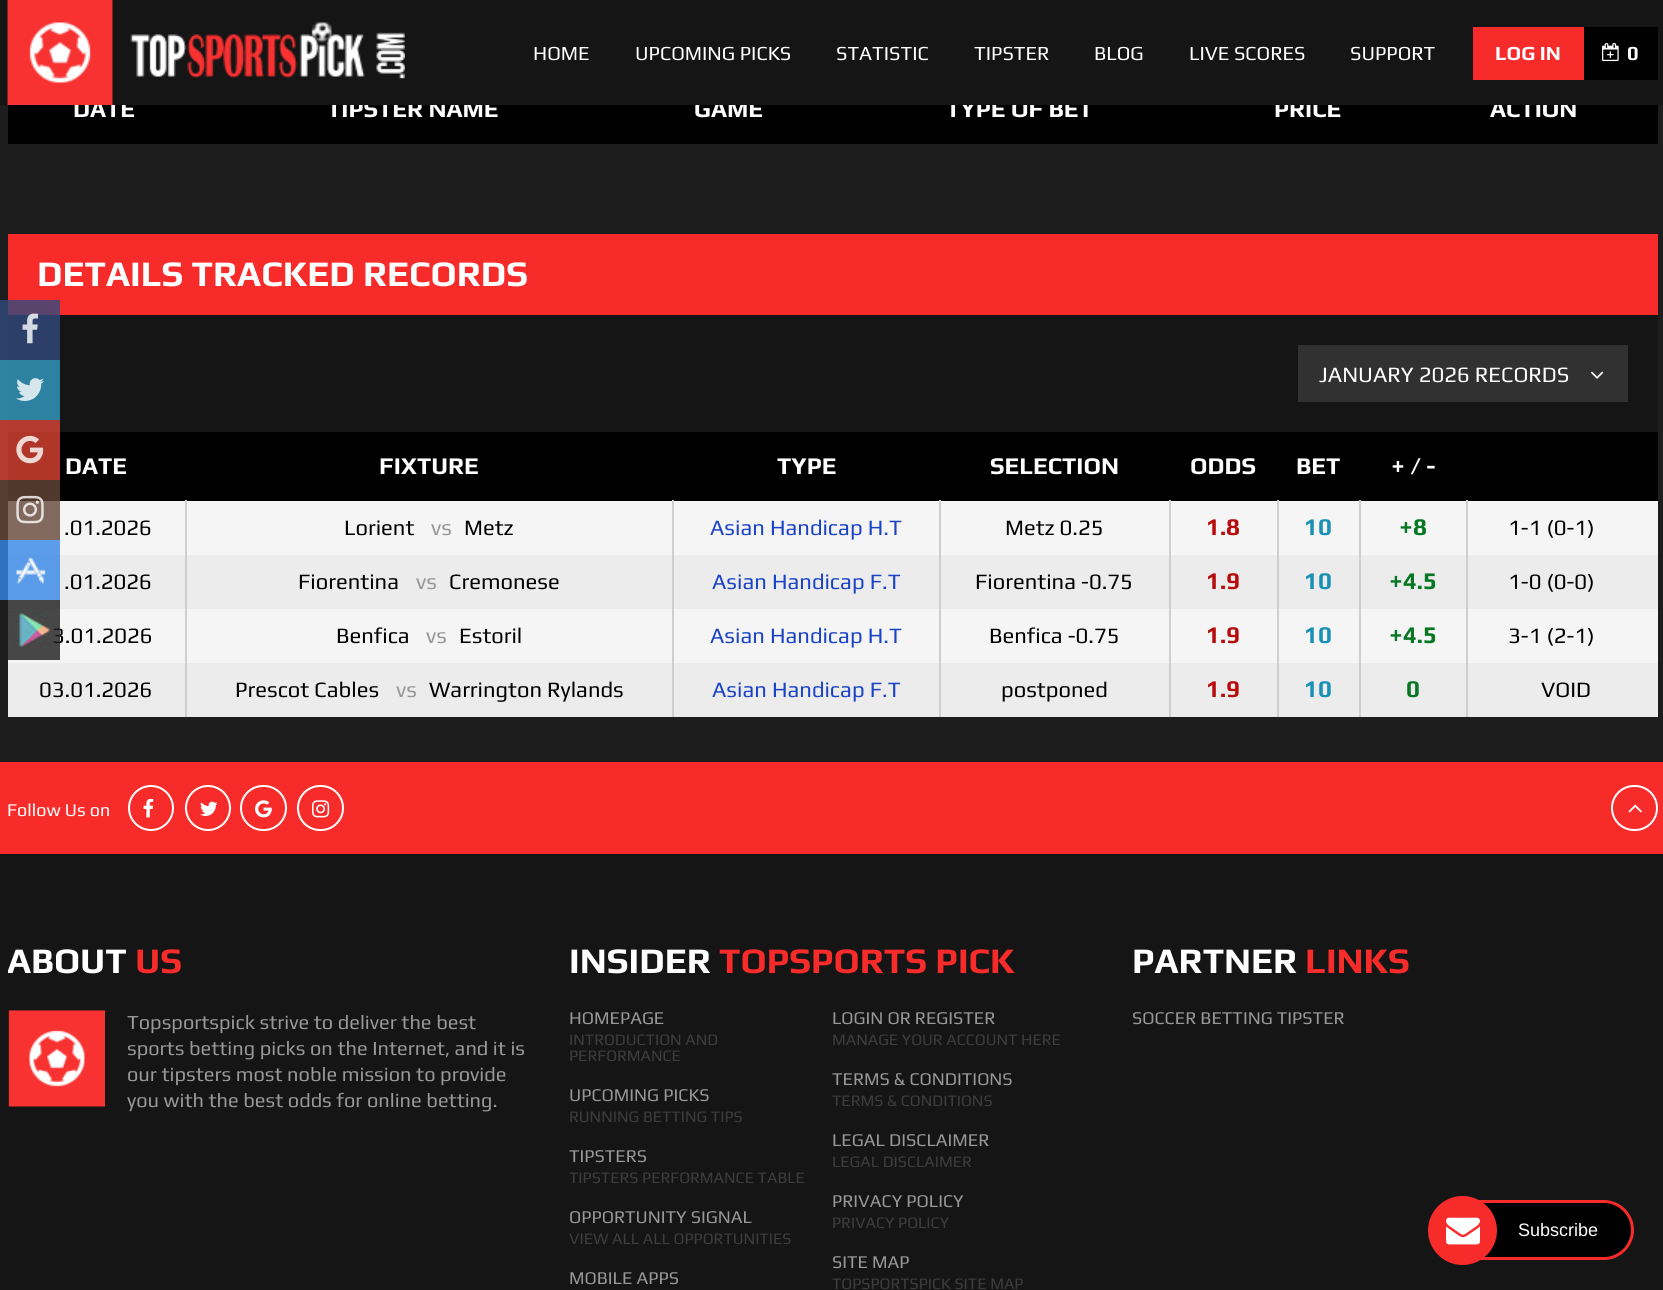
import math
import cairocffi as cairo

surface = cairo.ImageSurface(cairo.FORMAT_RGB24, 1663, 1290)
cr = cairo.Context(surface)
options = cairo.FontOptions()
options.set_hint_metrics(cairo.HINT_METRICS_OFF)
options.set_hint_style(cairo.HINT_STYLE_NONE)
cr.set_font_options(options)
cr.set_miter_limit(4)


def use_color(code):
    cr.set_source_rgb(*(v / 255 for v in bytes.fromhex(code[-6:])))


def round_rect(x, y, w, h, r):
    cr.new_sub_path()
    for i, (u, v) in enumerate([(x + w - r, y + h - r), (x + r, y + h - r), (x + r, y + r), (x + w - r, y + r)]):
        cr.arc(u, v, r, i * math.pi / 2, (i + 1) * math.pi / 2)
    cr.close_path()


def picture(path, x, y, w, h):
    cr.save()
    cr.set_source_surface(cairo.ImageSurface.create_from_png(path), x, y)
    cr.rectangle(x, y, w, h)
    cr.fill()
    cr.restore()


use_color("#1d1d1d")
cr.paint()
use_color("#b63b30")
cr.rectangle(0, 420, 8, 60)
cr.fill()
use_color("#2f83a3")
cr.rectangle(0, 360, 8, 60)
cr.fill()
use_color("#2c416a")
cr.rectangle(0, 300, 8, 60)
cr.fill()
use_color("#000000")
cr.rectangle(8, 105, 1650, 39)
cr.fill()
cr.select_font_face("Play", cairo.FONT_SLANT_NORMAL, cairo.FONT_WEIGHT_BOLD)
cr.set_font_size(24)
use_color("#ffffff")
cr.move_to(73, 117)
cr.show_text("DATE")
cr.move_to(327, 117)
cr.show_text("TIPSTER NAME")
cr.move_to(694, 117)
cr.show_text("GAME")
cr.move_to(946, 117)
cr.show_text("TYPE OF BET")
cr.move_to(1274, 117)
cr.show_text("PRICE")
cr.move_to(1490, 117)
cr.show_text("ACTION")
use_color("#151515")
cr.rectangle(0, 0, 1663, 105)
cr.fill()
picture("img1.png", 7, 0, 398, 105)
cr.select_font_face("Play")
cr.set_font_size(20)
use_color("#ffffff")
cr.move_to(533, 60)
cr.show_text("HOME")
cr.move_to(635, 60)
cr.show_text("UPCOMING PICKS")
cr.move_to(836, 60)
cr.show_text("STATISTIC")
cr.move_to(974, 60)
cr.show_text("TIPSTER")
cr.move_to(1094, 60)
cr.show_text("BLOG")
cr.move_to(1189, 60)
cr.show_text("LIVE SCORES")
cr.move_to(1350, 60)
cr.show_text("SUPPORT")
use_color("#f82b2b")
cr.rectangle(1473, 27, 111, 53)
cr.fill()
cr.select_font_face("Play", cairo.FONT_SLANT_NORMAL, cairo.FONT_WEIGHT_BOLD)
use_color("#ffffff")
cr.move_to(1495, 60)
cr.show_text("LOG IN")
use_color("#000000")
cr.rectangle(1584, 27, 74, 53)
cr.fill()
picture("img2.png", 1602, 43, 17, 19)
use_color("#ffffff")
cr.move_to(1627, 60)
cr.show_text("0")
use_color("#f82b2b")
cr.rectangle(8, 234, 1650, 81)
cr.fill()
use_color("#58446d")
cr.rectangle(8, 300, 52, 15)
cr.fill()
use_color("#2b3f68")
cr.rectangle(8, 315, 52, 45)
cr.fill()
picture("img3.png", 22, 313, 16, 31)
use_color("#2d82a1")
cr.rectangle(8, 360, 52, 60)
cr.fill()
picture("img4.png", 16, 378, 28, 23)
use_color("#000000")
cr.rectangle(8, 432, 1650, 69)
cr.fill()
use_color("#b0362a")
cr.rectangle(8, 432, 52, 48)
cr.fill()
picture("img5.png", 16, 435, 28, 29)
use_color("#f5f5f5")
cr.rectangle(8, 501, 1650, 54)
cr.fill()
cr.set_source_rgba(0.392, 0.278, 0.216, 0.8)
cr.rectangle(0, 480, 60, 60)
cr.fill()
picture("img6.png", 16, 495, 28, 29)
use_color("#ececec")
cr.rectangle(8, 555, 1650, 54)
cr.fill()
picture("img7.png", 0, 540, 60, 60)
use_color("#f5f5f5")
cr.rectangle(8, 609, 1650, 54)
cr.fill()
cr.select_font_face("Play")
cr.set_font_size(22)
use_color("#000000")
cr.move_to(52, 643)
cr.show_text("3.01.2026")
picture("img8.png", 8, 600, 52, 60)
cr.select_font_face("Play", cairo.FONT_SLANT_NORMAL, cairo.FONT_WEIGHT_BOLD)
cr.set_font_size(36)
use_color("#ffffff")
cr.move_to(37, 286)
cr.show_text("DETAILS TRACKED RECORDS")
use_color("#151515")
cr.rectangle(60, 315, 1598, 117)
cr.fill()
use_color("#b43a2f")
cr.rectangle(8, 420, 52, 12)
cr.fill()
use_color("#313131")
cr.rectangle(1298, 345, 330, 57)
cr.fill()
cr.select_font_face("Play")
cr.set_font_size(22)
use_color("#ffffff")
cr.move_to(1319, 382)
cr.show_text("JANUARY 2026 RECORDS")
picture("img9.png", 1591, 371, 13, 8)
cr.select_font_face("Play", cairo.FONT_SLANT_NORMAL, cairo.FONT_WEIGHT_BOLD)
cr.set_font_size(24)
cr.move_to(65, 474)
cr.show_text("DATE")
cr.move_to(379, 474)
cr.show_text("FIXTURE")
cr.move_to(777, 474)
cr.show_text("TYPE")
cr.move_to(990, 474)
cr.show_text("SELECTION")
cr.move_to(1190, 474)
cr.show_text("ODDS")
cr.move_to(1296, 474)
cr.show_text("BET")
cr.move_to(1391, 474)
cr.show_text("+ / -")
cr.select_font_face("Play")
cr.set_font_size(22)
use_color("#000000")
cr.move_to(64, 535)
cr.show_text(".01.2026")
cr.move_to(344, 535)
cr.show_text("Lorient")
use_color("#989898")
cr.move_to(431, 535)
cr.show_text("vs")
use_color("#000000")
cr.move_to(464, 535)
cr.show_text("Metz")
use_color("#1a43c6")
cr.move_to(710, 535)
cr.show_text("Asian Handicap H.T")
use_color("#000000")
cr.move_to(1005, 535)
cr.show_text("Metz 0.25")
cr.select_font_face("Play", cairo.FONT_SLANT_NORMAL, cairo.FONT_WEIGHT_BOLD)
cr.set_font_size(24)
use_color("#b70c0c")
cr.move_to(1206, 535)
cr.show_text("1.8")
use_color("#1991b7")
cr.move_to(1304, 535)
cr.show_text("10")
use_color("#087724")
cr.move_to(1399, 535)
cr.show_text("+8")
cr.select_font_face("Play")
cr.set_font_size(22)
use_color("#000000")
cr.move_to(1508, 535)
cr.show_text("1-1 (0-1)")
cr.move_to(64, 589)
cr.show_text(".01.2026")
cr.move_to(298, 589)
cr.show_text("Fiorentina")
use_color("#989898")
cr.move_to(416, 589)
cr.show_text("vs")
use_color("#000000")
cr.move_to(449, 589)
cr.show_text("Cremonese")
use_color("#1a43c6")
cr.move_to(712, 589)
cr.show_text("Asian Handicap F.T")
use_color("#000000")
cr.move_to(975, 589)
cr.show_text("Fiorentina -0.75")
cr.select_font_face("Play", cairo.FONT_SLANT_NORMAL, cairo.FONT_WEIGHT_BOLD)
cr.set_font_size(24)
use_color("#b70c0c")
cr.move_to(1206, 589)
cr.show_text("1.9")
use_color("#1991b7")
cr.move_to(1304, 589)
cr.show_text("10")
use_color("#087724")
cr.move_to(1389, 589)
cr.show_text("+4.5")
cr.select_font_face("Play")
cr.set_font_size(22)
use_color("#000000")
cr.move_to(1508, 589)
cr.show_text("1-0 (0-0)")
cr.move_to(336, 643)
cr.show_text("Benfica")
use_color("#989898")
cr.move_to(426, 643)
cr.show_text("vs")
use_color("#000000")
cr.move_to(459, 643)
cr.show_text("Estoril")
use_color("#1a43c6")
cr.move_to(710, 643)
cr.show_text("Asian Handicap H.T")
use_color("#000000")
cr.move_to(989, 643)
cr.show_text("Benfica -0.75")
cr.select_font_face("Play", cairo.FONT_SLANT_NORMAL, cairo.FONT_WEIGHT_BOLD)
cr.set_font_size(24)
use_color("#b70c0c")
cr.move_to(1206, 643)
cr.show_text("1.9")
use_color("#1991b7")
cr.move_to(1304, 643)
cr.show_text("10")
use_color("#087724")
cr.move_to(1389, 643)
cr.show_text("+4.5")
cr.select_font_face("Play")
cr.set_font_size(22)
use_color("#000000")
cr.move_to(1508, 643)
cr.show_text("3-1 (2-1)")
use_color("#ececec")
cr.rectangle(8, 663, 1650, 54)
cr.fill()
use_color("#cecece")
cr.rectangle(185, 500, 2, 217)
cr.fill()
use_color("#000000")
cr.move_to(39, 697)
cr.show_text("03.01.2026")
use_color("#cecece")
cr.rectangle(672, 500, 2, 217)
cr.fill()
use_color("#000000")
cr.move_to(235, 697)
cr.show_text("Prescot Cables")
use_color("#989898")
cr.move_to(396, 697)
cr.show_text("vs")
use_color("#000000")
cr.move_to(429, 697)
cr.show_text("Warrington Rylands")
use_color("#cecece")
cr.rectangle(939, 500, 2, 217)
cr.fill()
use_color("#1a43c6")
cr.move_to(712, 697)
cr.show_text("Asian Handicap F.T")
use_color("#cecece")
cr.rectangle(1169, 500, 2, 217)
cr.fill()
use_color("#000000")
cr.move_to(1001, 697)
cr.show_text("postponed")
use_color("#cecece")
cr.rectangle(1277, 500, 2, 217)
cr.fill()
cr.select_font_face("Play", cairo.FONT_SLANT_NORMAL, cairo.FONT_WEIGHT_BOLD)
cr.set_font_size(24)
use_color("#b70c0c")
cr.move_to(1206, 697)
cr.show_text("1.9")
use_color("#cecece")
cr.rectangle(1359, 500, 2, 217)
cr.fill()
use_color("#1991b7")
cr.move_to(1304, 697)
cr.show_text("10")
use_color("#cecece")
cr.rectangle(1466, 500, 2, 217)
cr.fill()
use_color("#087724")
cr.move_to(1406, 697)
cr.show_text("0")
cr.select_font_face("Play")
cr.set_font_size(22)
use_color("#000000")
cr.move_to(1541, 697)
cr.show_text("VOID")
use_color("#f82b2b")
cr.rectangle(0, 762, 1663, 92)
cr.fill()
cr.set_font_size(18)
use_color("#ffffff")
cr.move_to(7, 816)
cr.show_text("Follow Us on")
cr.new_path()
cr.arc(151, 808, 22, 0, 2 * math.pi)
cr.stroke()
picture("img10.png", 143, 798, 11, 20)
cr.arc(208, 808, 22, 0, 2 * math.pi)
cr.stroke()
picture("img11.png", 200, 801, 18, 15)
round_rect(241, 786, 45, 44, 22)
cr.stroke()
picture("img12.png", 255, 800, 17, 18)
round_rect(298, 786, 45, 44, 22)
cr.stroke()
picture("img13.png", 312, 800, 18, 18)
round_rect(1612, 786, 45, 44, 22)
cr.stroke()
picture("img14.png", 1628, 804, 14, 9)
use_color("#151515")
cr.rectangle(0, 854, 1663, 436)
cr.fill()
cr.save()
cr.rectangle(8, 944, 525, 169)
cr.clip()
cr.select_font_face("Play", cairo.FONT_SLANT_NORMAL, cairo.FONT_WEIGHT_BOLD)
cr.set_font_size(36)
use_color("#ffffff")
cr.move_to(7, 973)
cr.show_text("ABOUT")
cr.restore()
cr.select_font_face("Play", cairo.FONT_SLANT_NORMAL, cairo.FONT_WEIGHT_BOLD)
cr.set_font_size(36)
use_color("#f82b2b")
cr.move_to(135, 973)
cr.show_text("US")
picture("img15.png", 8, 1010, 97, 97)
cr.select_font_face("Play")
cr.set_font_size(20)
use_color("#989898")
cr.move_to(127, 1029)
cr.show_text("Topsportspick strive to deliver the best")
cr.move_to(127, 1055)
cr.show_text("sports betting picks on the Internet, and it is")
cr.move_to(127, 1081)
cr.show_text("our tipsters most noble mission to provide")
cr.move_to(127, 1107)
cr.show_text("you with the best odds for online betting.")
cr.select_font_face("Play", cairo.FONT_SLANT_NORMAL, cairo.FONT_WEIGHT_BOLD)
cr.set_font_size(36)
use_color("#ffffff")
cr.move_to(569, 973)
cr.show_text("INSIDER")
use_color("#f82b2b")
cr.move_to(719, 973)
cr.show_text("TOPSPORTS PICK")
cr.select_font_face("Play")
cr.set_font_size(18)
use_color("#989898")
cr.move_to(569, 1024)
cr.show_text("HOMEPAGE")
cr.set_font_size(16)
use_color("#3d3d3d")
cr.move_to(569, 1045)
cr.show_text("INTRODUCTION AND")
cr.move_to(569, 1061)
cr.show_text("PERFORMANCE")
cr.set_font_size(18)
use_color("#989898")
cr.move_to(569, 1101)
cr.show_text("UPCOMING PICKS")
cr.set_font_size(16)
use_color("#3d3d3d")
cr.move_to(569, 1122)
cr.show_text("RUNNING BETTING TIPS")
cr.set_font_size(18)
use_color("#989898")
cr.move_to(569, 1162)
cr.show_text("TIPSTERS")
cr.set_font_size(16)
use_color("#3d3d3d")
cr.move_to(569, 1183)
cr.show_text("TIPSTERS PERFORMANCE TABLE")
cr.set_font_size(18)
use_color("#989898")
cr.move_to(569, 1223)
cr.show_text("OPPORTUNITY SIGNAL")
cr.set_font_size(16)
use_color("#3d3d3d")
cr.move_to(569, 1244)
cr.show_text("VIEW ALL ALL OPPORTUNITIES")
cr.set_font_size(18)
use_color("#989898")
cr.move_to(569, 1284)
cr.show_text("MOBILE APPS")
cr.move_to(832, 1024)
cr.show_text("LOGIN OR REGISTER")
cr.set_font_size(16)
use_color("#3d3d3d")
cr.move_to(832, 1045)
cr.show_text("MANAGE YOUR ACCOUNT HERE")
cr.set_font_size(18)
use_color("#989898")
cr.move_to(832, 1085)
cr.show_text("TERMS & CONDITIONS")
cr.set_font_size(16)
use_color("#3d3d3d")
cr.move_to(832, 1106)
cr.show_text("TERMS & CONDITIONS")
cr.set_font_size(18)
use_color("#989898")
cr.move_to(832, 1146)
cr.show_text("LEGAL DISCLAIMER")
cr.set_font_size(16)
use_color("#3d3d3d")
cr.move_to(832, 1167)
cr.show_text("LEGAL DISCLAIMER")
cr.set_font_size(18)
use_color("#989898")
cr.move_to(832, 1207)
cr.show_text("PRIVACY POLICY")
cr.set_font_size(16)
use_color("#3d3d3d")
cr.move_to(832, 1228)
cr.show_text("PRIVACY POLICY")
cr.set_font_size(18)
use_color("#989898")
cr.move_to(832, 1268)
cr.show_text("SITE MAP")
cr.set_font_size(16)
use_color("#3d3d3d")
cr.move_to(832, 1289)
cr.show_text("TOPSPORTSPICK SITE MAP")
cr.select_font_face("Play", cairo.FONT_SLANT_NORMAL, cairo.FONT_WEIGHT_BOLD)
cr.set_font_size(36)
use_color("#ffffff")
cr.move_to(1132, 973)
cr.show_text("PARTNER")
use_color("#f82b2b")
cr.move_to(1305, 973)
cr.show_text("LINKS")
cr.select_font_face("Play")
cr.set_font_size(18)
use_color("#989898")
cr.move_to(1132, 1024)
cr.show_text("SOCCER BETTING TIPSTER")
use_color("#000000")
cr.new_path()
cr.move_to(1456.5, 1201.5)
cr.line_to(1604, 1201.5)
cr.curve_to(1619.5, 1201.5, 1632.5, 1214.5, 1632.5, 1230)
cr.curve_to(1632.5, 1245.5, 1619.5, 1258.5, 1604, 1258.5)
cr.line_to(1456.5, 1258.5)
cr.close_path()
cr.fill_preserve()
use_color("#f82b2b")
cr.set_line_width(3)
cr.stroke()
cr.arc(1462.5, 1230.5, 34.5, 0, 2 * math.pi)
cr.fill()
picture("img16.png", 1446, 1217, 34, 28)
cr.select_font_face("Liberation Sans")
use_color("#ffffff")
cr.move_to(1518, 1236)
cr.show_text("Subscribe")
surface.write_to_png("result.png")
